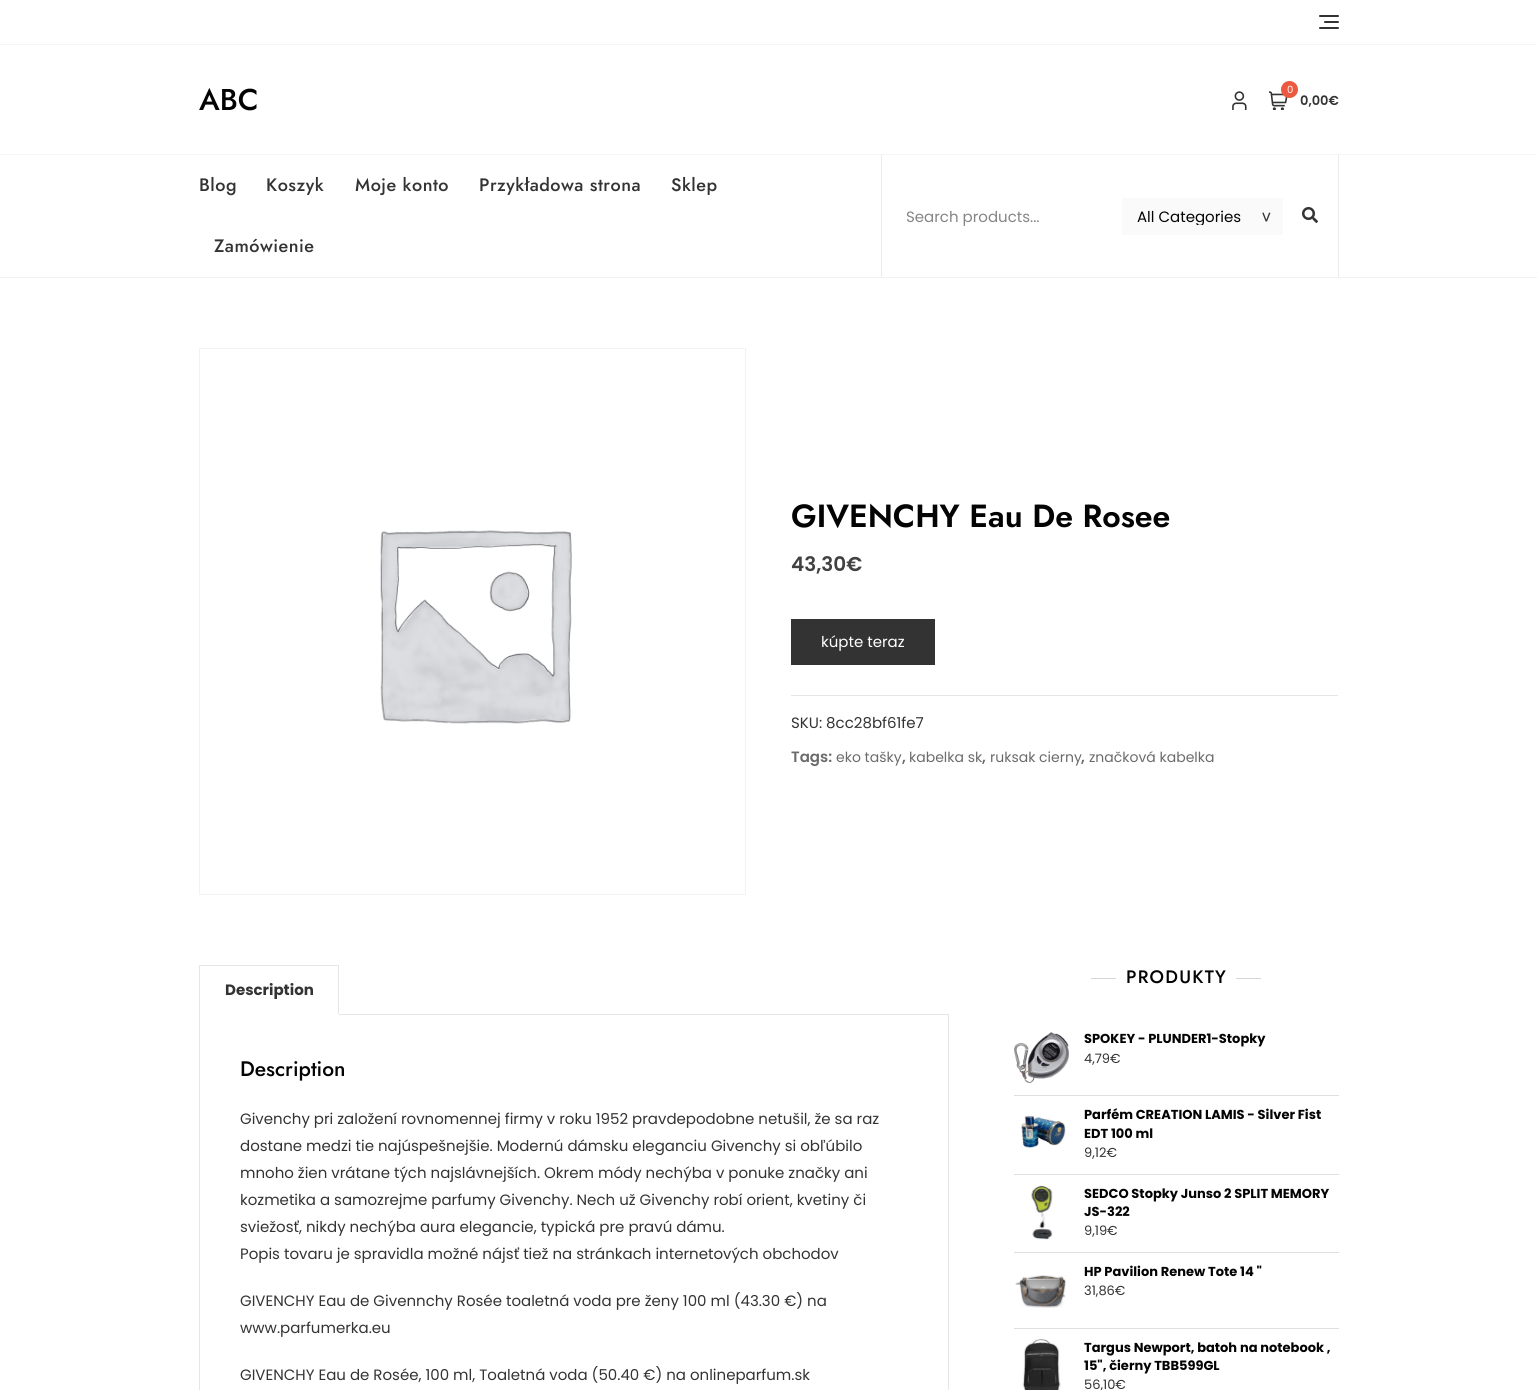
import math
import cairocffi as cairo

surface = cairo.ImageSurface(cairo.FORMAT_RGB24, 1537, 1390)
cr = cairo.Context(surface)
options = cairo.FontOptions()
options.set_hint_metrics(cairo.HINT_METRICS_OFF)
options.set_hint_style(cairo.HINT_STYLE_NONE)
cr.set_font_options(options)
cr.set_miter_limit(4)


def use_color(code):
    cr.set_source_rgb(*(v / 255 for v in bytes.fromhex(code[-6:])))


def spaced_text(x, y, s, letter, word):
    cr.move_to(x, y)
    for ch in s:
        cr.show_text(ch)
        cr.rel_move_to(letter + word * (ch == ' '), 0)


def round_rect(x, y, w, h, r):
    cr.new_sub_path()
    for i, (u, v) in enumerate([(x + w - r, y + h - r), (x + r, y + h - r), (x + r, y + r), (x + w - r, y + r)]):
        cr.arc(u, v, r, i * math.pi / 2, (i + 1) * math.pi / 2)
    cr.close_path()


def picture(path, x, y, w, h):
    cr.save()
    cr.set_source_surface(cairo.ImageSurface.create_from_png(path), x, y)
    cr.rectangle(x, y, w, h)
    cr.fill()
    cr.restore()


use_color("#ffffff")
cr.paint()
use_color("#f5f5f5")
cr.rectangle(0, 44, 1537, 1)
cr.fill()
use_color("#333333")
round_rect(1324, 21, 15, 2, 1)
cr.fill()
round_rect(1319, 15, 20, 2, 1)
cr.fill()
round_rect(1319, 27, 20, 2, 1)
cr.fill()
use_color("#f5f5f5")
cr.rectangle(0, 154, 1537, 1)
cr.fill()
cr.select_font_face("Jost Medium")
cr.set_font_size(30)
use_color("#030303")
cr.move_to(199, 110)
cr.show_text("ABC")
picture("img1.png", 1232, 91, 15, 19)
picture("img2.png", 1269, 91, 19, 19)
use_color("#eb5a3e")
cr.arc(1289.5, 89.5, 8.5, 0, 2 * math.pi)
cr.fill()
cr.select_font_face("Poppins")
cr.set_font_size(10)
use_color("#ffffff")
cr.move_to(1287, 93)
cr.show_text("0")
cr.select_font_face("Poppins SemiBold")
cr.set_font_size(13)
use_color("#333333")
cr.move_to(1300, 105)
cr.show_text("0,00€")
cr.select_font_face("Jost Medium")
cr.set_font_size(18)
spaced_text(199, 191, "Blog", 0.5, 0)
spaced_text(266, 191, "Koszyk", 0.5, 0)
spaced_text(355, 191, "Moje konto", 0.5, 0)
spaced_text(479, 191, "Przykładowa strona", 0.5, 0)
spaced_text(671, 191, "Sklep", 0.5, 0)
spaced_text(214, 252, "Zamówienie", 0.5, 0)
use_color("#ebebeb")
cr.rectangle(1338, 155, 1, 122)
cr.fill()
cr.rectangle(881, 155, 1, 122)
cr.fill()
cr.select_font_face("Poppins")
cr.set_font_size(15)
use_color("#858585")
cr.move_to(906, 222)
cr.show_text("Search products...")
use_color("#fafafa")
cr.rectangle(1122, 198, 161, 37)
cr.fill()
cr.save()
cr.rectangle(1137, 208, 131, 17)
cr.clip()
use_color("#030303")
cr.move_to(1137, 222)
cr.show_text("All Categories")
cr.restore()
cr.select_font_face("DejaVu Sans Mono")
cr.set_font_size(17)
use_color("#333333")
cr.save()
cr.translate(1261, 212)
cr.rotate(90 * math.pi / 180)
cr.move_to(0, 0)
cr.show_text(">")
cr.restore()
picture("img3.png", 1302, 207, 16, 16)
use_color("#f2f2f2")
cr.rectangle(0, 277, 1537, 1)
cr.fill()
cr.rectangle(199.5, 348.5, 546, 546)
cr.set_line_width(1)
cr.stroke()
picture("img4.png", 380, 530, 192, 194)
cr.select_font_face("Jost SemiBold")
cr.set_font_size(32)
use_color("#030303")
cr.move_to(791, 527)
cr.show_text("GIVENCHY Eau De Rosee")
cr.select_font_face("Poppins SemiBold")
cr.set_font_size(20)
use_color("#414141")
cr.move_to(791, 571)
cr.show_text("43,30€")
use_color("#333333")
cr.rectangle(791, 619, 144, 46)
cr.fill()
cr.select_font_face("Poppins")
cr.set_font_size(15)
use_color("#ffffff")
cr.move_to(821, 647)
cr.show_text("kúpte teraz")
use_color("#e6e6e6")
cr.rectangle(791, 695, 547, 1)
cr.fill()
use_color("#333333")
cr.move_to(791, 728)
cr.show_text("SKU: 8cc28bf61fe7")
cr.select_font_face("Poppins SemiBold")
use_color("#6b6b6b")
cr.move_to(791, 762)
cr.show_text("Tags:")
cr.select_font_face("Poppins")
cr.set_font_size(14)
cr.move_to(836, 762)
cr.show_text("eko tašky")
cr.select_font_face("Poppins SemiBold")
cr.set_font_size(15)
cr.move_to(902, 762)
cr.show_text(",")
cr.select_font_face("Poppins")
cr.set_font_size(14)
cr.move_to(909, 762)
cr.show_text("kabelka sk")
cr.select_font_face("Poppins SemiBold")
cr.set_font_size(15)
cr.move_to(982, 762)
cr.show_text(",")
cr.select_font_face("Poppins")
cr.set_font_size(14)
cr.move_to(990, 762)
cr.show_text("ruksak cierny")
cr.select_font_face("Poppins SemiBold")
cr.set_font_size(15)
cr.move_to(1081, 762)
cr.show_text(",")
cr.select_font_face("Poppins")
cr.set_font_size(14)
cr.move_to(1089, 762)
cr.show_text("značková kabelka")
use_color("#e6e6e6")
cr.rectangle(199, 965, 140, 1)
cr.fill()
cr.rectangle(338, 965, 1, 50)
cr.fill()
use_color("#ffffff")
cr.rectangle(338, 1014, 1, 1)
cr.fill()
use_color("#e6e6e6")
cr.rectangle(199, 965, 1, 50)
cr.fill()
cr.select_font_face("Poppins", cairo.FONT_SLANT_NORMAL, cairo.FONT_WEIGHT_BOLD)
cr.set_font_size(15)
use_color("#333333")
cr.move_to(225, 995)
cr.show_text("Description")
use_color("#e6e6e6")
cr.rectangle(339, 1014, 610, 1)
cr.fill()
cr.rectangle(948, 1015, 1, 375)
cr.fill()
cr.rectangle(199, 1015, 1, 375)
cr.fill()
cr.select_font_face("Jost Medium")
cr.set_font_size(21)
use_color("#030303")
cr.move_to(240, 1076)
cr.show_text("Description")
cr.select_font_face("Poppins")
cr.set_font_size(15)
use_color("#333333")
cr.move_to(240, 1124)
cr.show_text("Givenchy pri založení rovnomennej firmy v roku 1952 pravdepodobne netušil, že sa raz")
cr.move_to(240, 1151)
cr.show_text("dostane medzi tie najúspešnejšie. Modernú dámsku eleganciu Givenchy si obľúbilo")
cr.move_to(240, 1178)
cr.show_text("mnoho žien vrátane tých najslávnejších. Okrem módy nechýba v ponuke značky ani")
cr.move_to(240, 1205)
cr.show_text("kozmetika a samozrejme parfumy Givenchy. Nech už Givenchy robí orient, kvetiny či")
cr.move_to(240, 1232)
cr.show_text("sviežosť, nikdy nechýba aura elegancie, typická pre pravú dámu.")
cr.move_to(240, 1259)
cr.show_text("Popis tovaru je spravidla možné nájsť tiež na stránkach internetových obchodov")
cr.move_to(240, 1306)
cr.show_text("GIVENCHY Eau de Givennchy Rosée toaletná voda pre ženy 100 ml (43.30 €) na")
cr.move_to(240, 1333)
cr.show_text("www.parfumerka.eu")
cr.move_to(240, 1380)
cr.show_text("GIVENCHY Eau de Rosée, 100 ml, Toaletná voda (50.40 €) na onlineparfum.sk")
use_color("#d6d6d6")
cr.rectangle(1091, 978, 25, 1)
cr.fill()
cr.select_font_face("Jost Medium")
cr.set_font_size(18)
use_color("#030303")
spaced_text(1126, 983, "PRODUKTY", 1.25, 0)
use_color("#d6d6d6")
cr.rectangle(1236, 978, 25, 1)
cr.fill()
use_color("#e0e0e0")
cr.rectangle(1014, 1095, 325, 1)
cr.fill()
picture("img5.png", 1014, 1032, 55, 51)
cr.select_font_face("Poppins", cairo.FONT_SLANT_NORMAL, cairo.FONT_WEIGHT_BOLD)
cr.set_font_size(13)
use_color("#030303")
cr.move_to(1084, 1043)
cr.show_text("SPOKEY - PLUNDER1-Stopky")
cr.select_font_face("Poppins")
use_color("#333333")
cr.move_to(1084, 1063)
cr.show_text("4,79€")
use_color("#e0e0e0")
cr.rectangle(1014, 1174, 325, 1)
cr.fill()
picture("img6.png", 1021, 1115, 45, 34)
cr.select_font_face("Poppins", cairo.FONT_SLANT_NORMAL, cairo.FONT_WEIGHT_BOLD)
use_color("#030303")
cr.move_to(1084, 1119)
cr.show_text("Parfém CREATION LAMIS - Silver Fist")
cr.move_to(1084, 1138)
cr.show_text("EDT 100 ml")
cr.select_font_face("Poppins")
use_color("#333333")
cr.move_to(1084, 1157)
cr.show_text("9,12€")
use_color("#e0e0e0")
cr.rectangle(1014, 1252, 325, 1)
cr.fill()
picture("img7.png", 1031, 1185, 22, 55)
cr.select_font_face("Poppins", cairo.FONT_SLANT_NORMAL, cairo.FONT_WEIGHT_BOLD)
use_color("#030303")
cr.move_to(1084, 1198)
cr.show_text("SEDCO Stopky Junso 2 SPLIT MEMORY")
cr.move_to(1084, 1216)
cr.show_text("JS-322")
cr.select_font_face("Poppins")
use_color("#333333")
cr.move_to(1084, 1235)
cr.show_text("9,19€")
use_color("#e0e0e0")
cr.rectangle(1014, 1328, 325, 1)
cr.fill()
cr.select_font_face("Poppins", cairo.FONT_SLANT_NORMAL, cairo.FONT_WEIGHT_BOLD)
use_color("#030303")
cr.move_to(1084, 1276)
cr.show_text("HP Pavilion Renew Tote 14 \"")
picture("img8.png", 1015, 1275, 51, 33)
cr.select_font_face("Poppins")
use_color("#333333")
cr.move_to(1084, 1295)
cr.show_text("31,86€")
picture("img9.png", 1022, 1339, 39, 51)
cr.select_font_face("Poppins", cairo.FONT_SLANT_NORMAL, cairo.FONT_WEIGHT_BOLD)
use_color("#030303")
cr.move_to(1084, 1352)
cr.show_text("Targus Newport, batoh na notebook ,")
cr.move_to(1084, 1370)
cr.show_text("15\", čierny TBB599GL")
cr.select_font_face("Poppins")
use_color("#333333")
cr.move_to(1084, 1389)
cr.show_text("56,10€")
surface.write_to_png("result.png")
